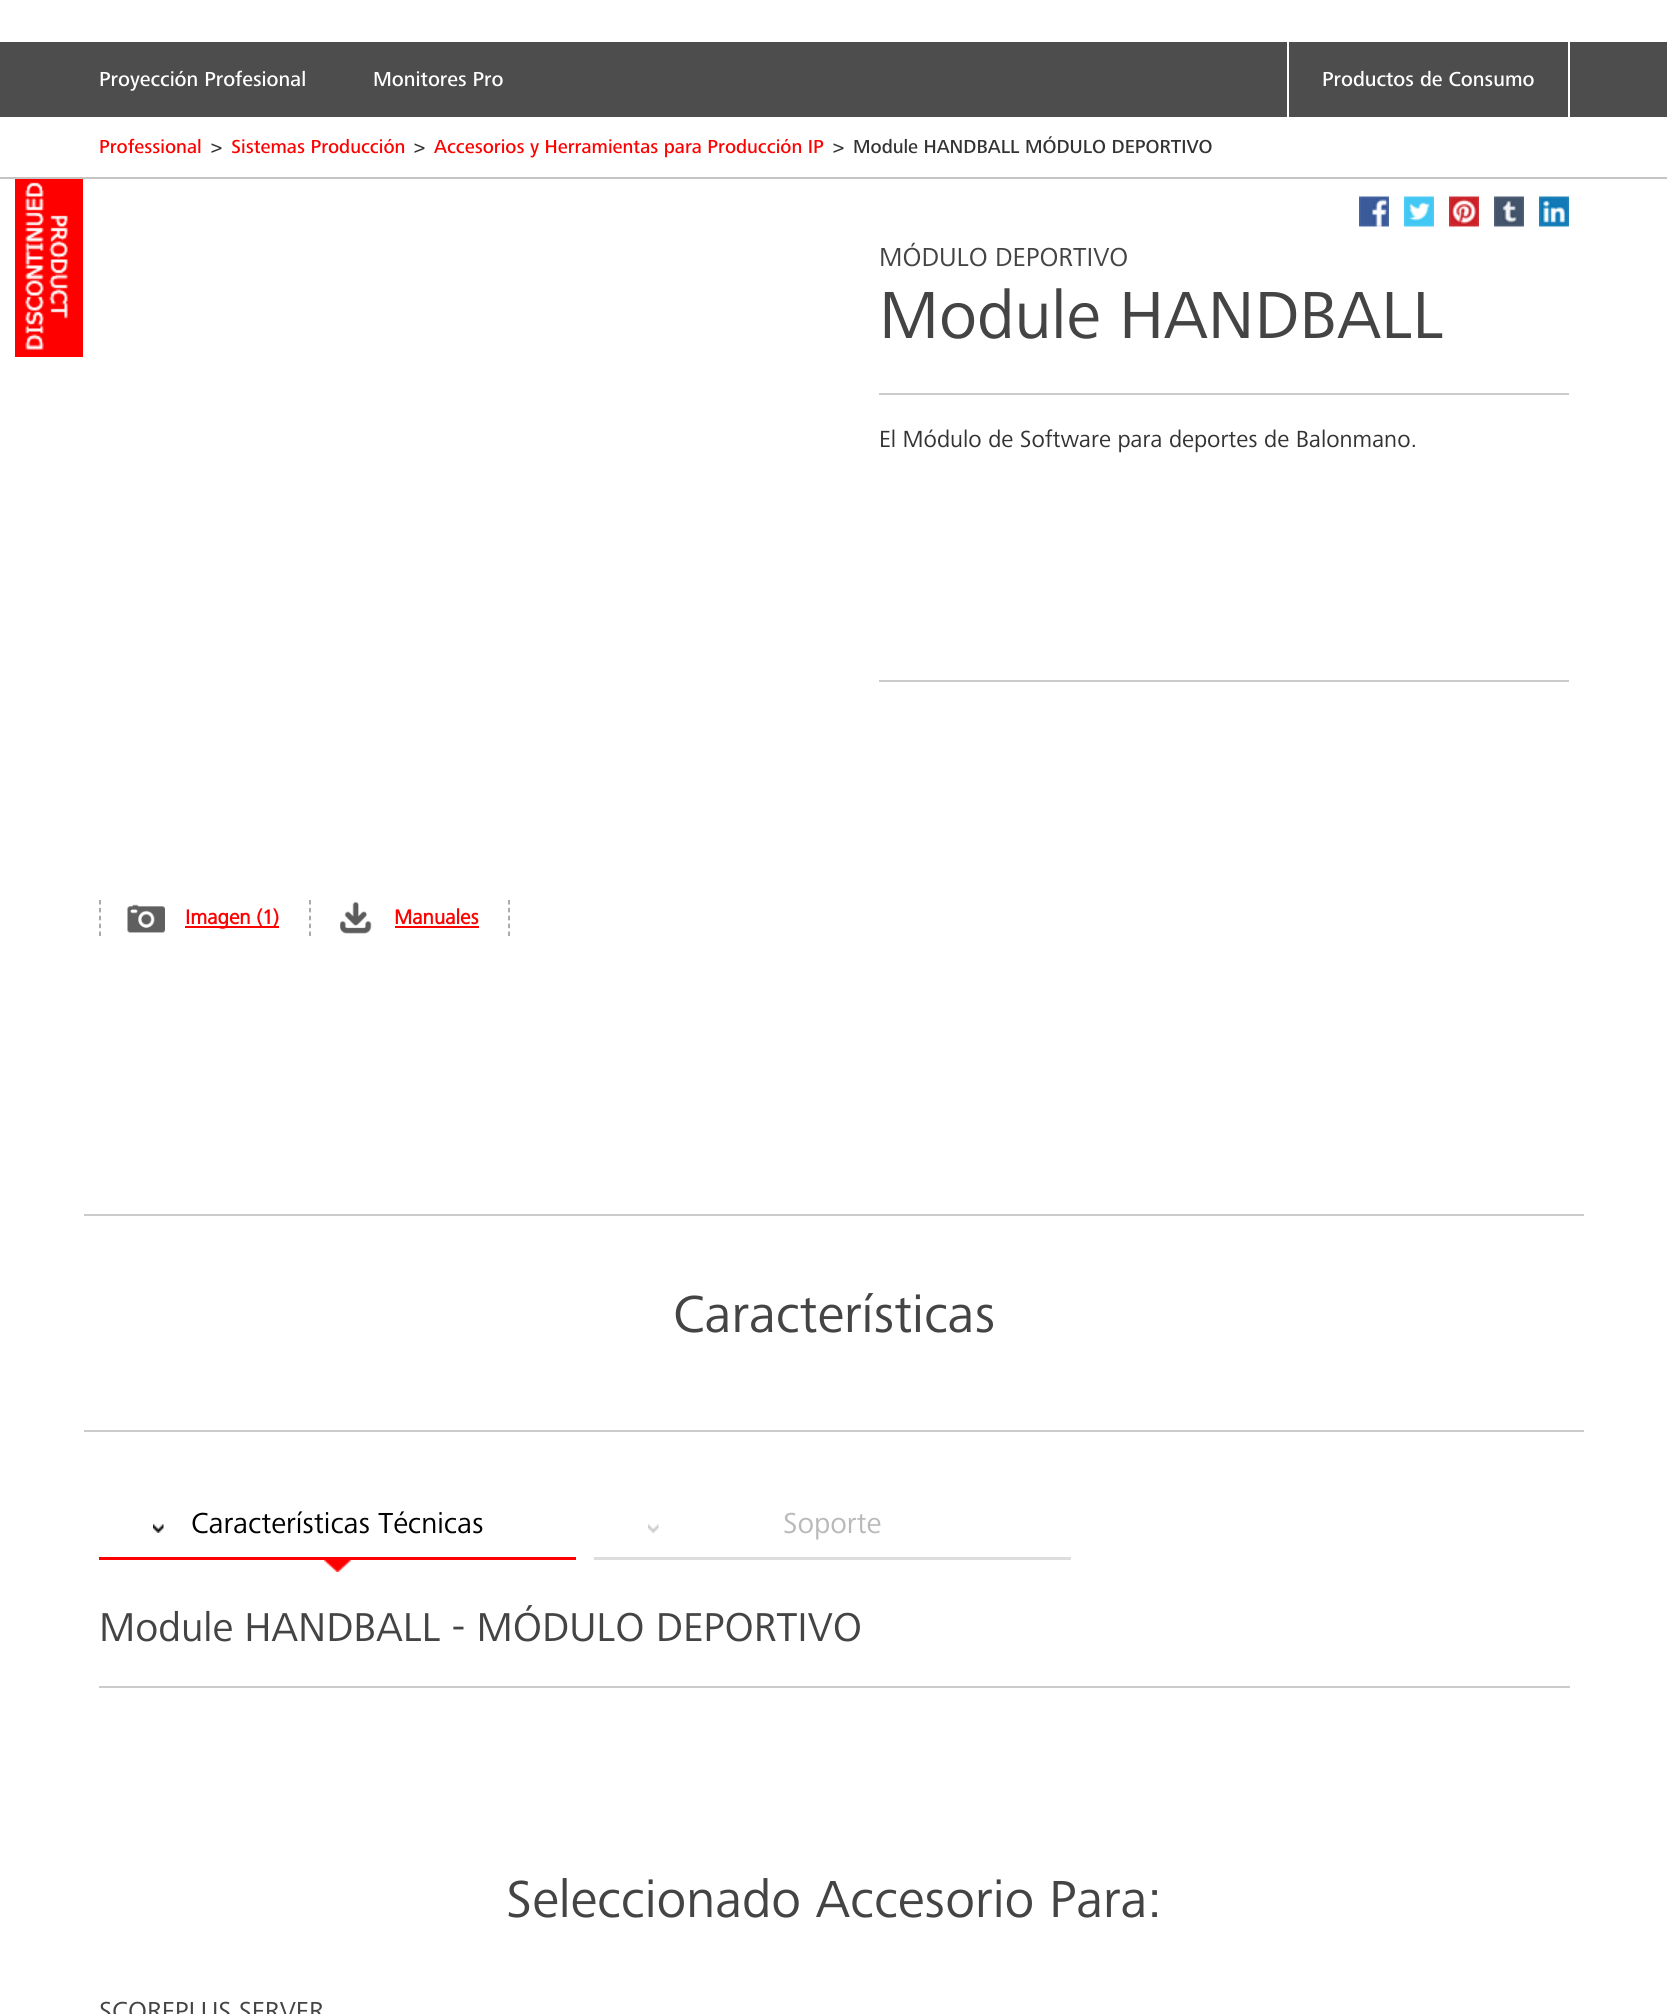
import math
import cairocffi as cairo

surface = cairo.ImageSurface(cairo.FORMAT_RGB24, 1667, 2014)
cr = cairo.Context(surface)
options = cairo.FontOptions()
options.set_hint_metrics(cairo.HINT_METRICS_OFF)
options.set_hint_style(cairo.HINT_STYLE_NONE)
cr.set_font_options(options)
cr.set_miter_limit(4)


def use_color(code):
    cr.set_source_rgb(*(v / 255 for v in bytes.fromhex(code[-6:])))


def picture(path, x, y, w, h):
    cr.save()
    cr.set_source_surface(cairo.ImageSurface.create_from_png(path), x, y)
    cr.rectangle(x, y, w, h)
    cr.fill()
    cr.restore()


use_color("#ffffff")
cr.paint()
use_color("#c4c4c4")
cr.rectangle(0, 177, 1667, 2)
cr.fill()
use_color("#4d4d4d")
cr.rectangle(0, 42, 1667, 75)
cr.fill()
cr.select_font_face("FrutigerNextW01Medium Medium")
cr.set_font_size(21)
use_color("#ffffff")
cr.move_to(99, 86)
cr.show_text("Proyección Profesional")
cr.move_to(373, 86)
cr.show_text("Monitores Pro")
cr.rectangle(1568, 42, 2, 75)
cr.fill()
cr.rectangle(1287, 42, 2, 75)
cr.fill()
cr.move_to(1322, 86)
cr.show_text("Productos de Consumo")
cr.set_font_size(19.5)
use_color("#ff0000")
cr.move_to(99, 153)
cr.show_text("Professional")
use_color("#333333")
cr.move_to(211, 153)
cr.show_text(">")
use_color("#ff0000")
cr.move_to(231, 153)
cr.show_text("Sistemas Producción")
use_color("#333333")
cr.move_to(414, 153)
cr.show_text(">")
use_color("#ff0000")
cr.move_to(434, 153)
cr.show_text("Accesorios y Herramientas para Producción IP")
use_color("#333333")
cr.move_to(833, 153)
cr.show_text(">")
cr.move_to(853, 153)
cr.show_text("Module HANDBALL MÓDULO DEPORTIVO")
use_color("#cccccc")
cr.rectangle(84, 1214, 1500, 2)
cr.fill()
use_color("#ff0000")
cr.rectangle(15, 179, 68, 178)
cr.fill()
picture("img1.png", 25, 182, 43, 168)
picture("img2.png", 1359, 196, 30, 31)
picture("img3.png", 1404, 196, 30, 31)
picture("img4.png", 1449, 196, 30, 31)
picture("img5.png", 1494, 196, 30, 31)
picture("img6.png", 1539, 196, 30, 31)
cr.select_font_face("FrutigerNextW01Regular")
cr.set_font_size(27)
use_color("#444444")
cr.move_to(879, 266)
cr.show_text("MÓDULO DEPORTIVO")
cr.set_font_size(69)
cr.move_to(879, 338)
cr.show_text("Module HANDBALL")
use_color("#cccccc")
cr.rectangle(879, 393, 690, 2)
cr.fill()
cr.rectangle(879, 680, 690, 2)
cr.fill()
cr.set_font_size(24.2)
use_color("#333333")
cr.move_to(879, 447)
cr.show_text("El Módulo de Software para deportes de Balonmano.")
cr.new_path()
cr.move_to(100, 900)
cr.line_to(100, 936)
use_color("#8f8f8f")
cr.set_line_width(1.5)
cr.set_dash([4.5, 3.38])
cr.stroke()
picture("img7.png", 127, 904, 38, 29)
use_color("#ff0000")
cr.rectangle(185, 926, 94, 2)
cr.fill()
cr.select_font_face("FrutigerNextW01Regular", cairo.FONT_SLANT_NORMAL, cairo.FONT_WEIGHT_BOLD)
cr.set_font_size(21)
cr.move_to(185, 924)
cr.show_text("Imagen (1)")
cr.new_path()
cr.move_to(509, 900)
cr.line_to(509, 936)
use_color("#8f8f8f")
cr.stroke()
cr.new_path()
cr.move_to(310, 900)
cr.line_to(310, 936)
cr.stroke()
picture("img8.png", 340, 901, 32, 33)
use_color("#ff0000")
cr.move_to(394, 924)
cr.show_text("Manuales")
cr.rectangle(395, 926, 84, 2)
cr.fill()
use_color("#cccccc")
cr.rectangle(84, 1430, 1500, 2)
cr.fill()
cr.select_font_face("FrutigerNextW01Regular")
cr.set_font_size(54)
use_color("#444444")
cr.move_to(673, 1332)
cr.show_text("Características")
picture("img9.png", 324, 1560, 27, 12)
picture("img10.png", 153, 1524, 11, 9)
use_color("#ff0000")
cr.rectangle(99, 1557, 477, 3)
cr.fill()
cr.set_font_size(30)
use_color("#000000")
cr.move_to(191, 1533)
cr.show_text("Características Técnicas")
picture("img11.png", 648, 1524, 11, 9)
use_color("#dddddd")
cr.rectangle(594, 1557, 477, 3)
cr.fill()
use_color("#b9b9b9")
cr.move_to(783, 1533)
cr.show_text("Soporte")
cr.set_font_size(41.75)
use_color("#444444")
cr.move_to(99, 1641)
cr.show_text("Module HANDBALL - MÓDULO DEPORTIVO")
use_color("#cccccc")
cr.rectangle(99, 1686, 1471, 2)
cr.fill()
cr.set_font_size(54)
use_color("#444444")
cr.move_to(506, 1917)
cr.show_text("Seleccionado Accesorio Para:")
cr.set_font_size(27)
cr.move_to(99, 2020)
cr.show_text("SCOREPLUS SERVER")
surface.write_to_png("result.png")
